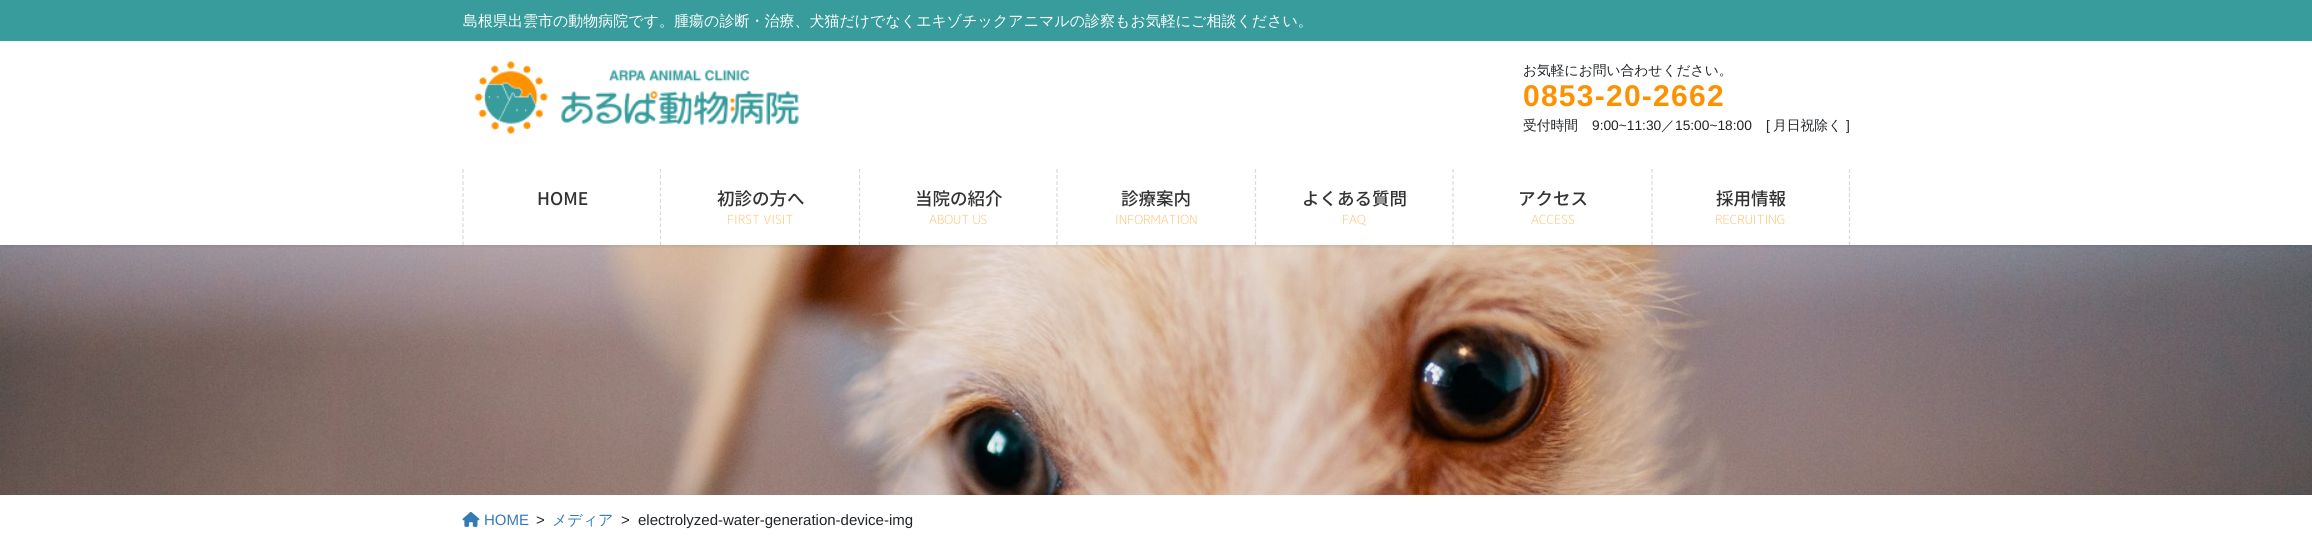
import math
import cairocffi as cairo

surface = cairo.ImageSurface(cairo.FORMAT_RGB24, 2312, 559)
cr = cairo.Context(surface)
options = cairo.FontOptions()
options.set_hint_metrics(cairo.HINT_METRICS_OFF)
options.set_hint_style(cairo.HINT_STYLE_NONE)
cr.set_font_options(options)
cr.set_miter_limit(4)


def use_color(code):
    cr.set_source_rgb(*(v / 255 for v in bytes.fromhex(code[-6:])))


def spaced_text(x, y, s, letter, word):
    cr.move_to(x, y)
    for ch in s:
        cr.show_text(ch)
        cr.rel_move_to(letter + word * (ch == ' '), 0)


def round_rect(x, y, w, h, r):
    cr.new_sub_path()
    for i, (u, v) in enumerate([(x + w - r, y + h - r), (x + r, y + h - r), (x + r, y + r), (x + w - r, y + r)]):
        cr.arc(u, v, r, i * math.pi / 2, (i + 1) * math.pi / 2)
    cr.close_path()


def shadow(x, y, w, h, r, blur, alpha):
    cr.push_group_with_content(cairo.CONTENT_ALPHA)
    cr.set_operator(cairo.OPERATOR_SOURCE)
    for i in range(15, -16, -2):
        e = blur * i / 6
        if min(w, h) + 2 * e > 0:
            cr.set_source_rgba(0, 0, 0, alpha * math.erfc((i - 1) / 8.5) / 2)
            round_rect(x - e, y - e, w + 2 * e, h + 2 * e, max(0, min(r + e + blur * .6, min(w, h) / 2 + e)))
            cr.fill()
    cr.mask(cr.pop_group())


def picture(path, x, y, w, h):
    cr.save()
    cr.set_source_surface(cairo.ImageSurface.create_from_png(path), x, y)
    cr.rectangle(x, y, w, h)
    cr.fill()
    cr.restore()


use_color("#ffffff")
cr.paint()
picture("img2.png", 0, 245, 2312, 250)
cr.save()
cr.rectangle(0, 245, 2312, 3)
cr.clip()
use_color("#000000")
shadow(0, -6, 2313, 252, 0, 2, 0.1)
cr.restore()
use_color("#389c9c")
cr.rectangle(0, 0, 2312, 41)
cr.fill()
cr.select_font_face("WenQuanYi Zen Hei Medium")
cr.set_font_size(15)
use_color("#ffffff")
cr.move_to(463, 26)
cr.show_text("島根県出雲市の動物病院です。腫瘍の診断・治療、犬猫だけでなくエキゾチックアニマルの診察もお気軽にご相談ください。")
picture("img1.png", 474, 61, 325, 73)
cr.set_font_size(13.75)
use_color("#212529")
cr.move_to(1523, 75)
cr.show_text("お気軽にお問い合わせください。")
cr.select_font_face("Liberation Sans", cairo.FONT_SLANT_NORMAL, cairo.FONT_WEIGHT_BOLD)
cr.set_font_size(30)
use_color("#fd9100")
spaced_text(1523, 106, "0853-20-2662", 1.25, 0)
cr.select_font_face("WenQuanYi Zen Hei Medium")
cr.set_font_size(13.75)
use_color("#212529")
cr.move_to(1523, 130)
cr.show_text("受付時間")
cr.select_font_face("Liberation Sans")
cr.move_to(1592, 130)
cr.show_text("9:00~11:30")
cr.select_font_face("WenQuanYi Zen Hei Medium")
cr.move_to(1661, 130)
cr.show_text("／")
cr.select_font_face("Liberation Sans")
cr.move_to(1675, 130)
cr.show_text("15:00~18:00")
cr.move_to(1766, 130)
cr.show_text("[")
cr.select_font_face("WenQuanYi Zen Hei Medium")
cr.move_to(1773, 130)
cr.show_text("月日祝除く")
cr.select_font_face("Liberation Sans")
cr.move_to(1846, 130)
cr.show_text("]")
cr.new_path()
cr.move_to(463, 169)
cr.line_to(463, 245)
use_color("#d9d9d9")
cr.set_line_width(1.2)
cr.set_dash([3.75, 2.29])
cr.stroke()
cr.select_font_face("Noto Sans JP Thin")
cr.set_font_size(17.5)
use_color("#333333")
cr.move_to(537, 205)
cr.show_text("HOME")
cr.new_path()
cr.move_to(660.5, 169)
cr.line_to(660.5, 245)
use_color("#d9d9d9")
cr.stroke()
use_color("#333333")
cr.move_to(717, 205)
cr.show_text("初診の方へ")
cr.select_font_face("Rounded Mplus 1c Light")
cr.set_font_size(12.5)
use_color("#febd66")
cr.move_to(727, 224)
cr.show_text("FIRST VISIT")
cr.new_path()
cr.move_to(859.5, 169)
cr.line_to(859.5, 245)
use_color("#d9d9d9")
cr.stroke()
cr.select_font_face("Noto Sans JP Thin")
cr.set_font_size(17.5)
use_color("#333333")
cr.move_to(915, 205)
cr.show_text("当院の紹介")
cr.select_font_face("Rounded Mplus 1c Light")
cr.set_font_size(12.5)
use_color("#febd66")
cr.move_to(929, 224)
cr.show_text("ABOUT US")
cr.new_path()
cr.move_to(1057, 169)
cr.line_to(1057, 245)
use_color("#d9d9d9")
cr.stroke()
cr.select_font_face("Noto Sans JP Thin")
cr.set_font_size(17.5)
use_color("#333333")
cr.move_to(1121, 205)
cr.show_text("診療案内")
cr.select_font_face("Rounded Mplus 1c Light")
cr.set_font_size(12.5)
use_color("#febd66")
cr.move_to(1115, 224)
cr.show_text("INFORMATION")
cr.new_path()
cr.move_to(1255.5, 169)
cr.line_to(1255.5, 245)
use_color("#d9d9d9")
cr.stroke()
cr.select_font_face("Noto Sans JP Thin")
cr.set_font_size(17.5)
use_color("#333333")
cr.move_to(1302, 205)
cr.show_text("よくある質問")
cr.select_font_face("Rounded Mplus 1c Light")
cr.set_font_size(12.5)
use_color("#febd66")
cr.move_to(1342, 224)
cr.show_text("FAQ")
cr.new_path()
cr.move_to(1453, 169)
cr.line_to(1453, 245)
use_color("#d9d9d9")
cr.stroke()
cr.select_font_face("Noto Sans JP Thin")
cr.set_font_size(17.5)
use_color("#333333")
cr.move_to(1518, 205)
cr.show_text("アクセス")
cr.select_font_face("Rounded Mplus 1c Light")
cr.set_font_size(12.5)
use_color("#febd66")
cr.move_to(1531, 224)
cr.show_text("ACCESS")
cr.new_path()
cr.move_to(1849.5, 169)
cr.line_to(1849.5, 245)
use_color("#d9d9d9")
cr.stroke()
cr.new_path()
cr.move_to(1652, 169)
cr.line_to(1652, 245)
cr.stroke()
cr.select_font_face("Noto Sans JP Thin")
cr.set_font_size(17.5)
use_color("#333333")
cr.move_to(1716, 205)
cr.show_text("採用情報")
cr.select_font_face("Rounded Mplus 1c Light")
cr.set_font_size(12.5)
use_color("#febd66")
cr.move_to(1715, 224)
cr.show_text("RECRUITING")
picture("img3.png", 462, 511, 18, 16)
cr.select_font_face("Liberation Sans")
cr.set_font_size(15)
use_color("#337ab7")
cr.move_to(484, 525)
cr.show_text("HOME")
use_color("#212529")
cr.move_to(536, 525)
cr.show_text(">")
cr.select_font_face("WenQuanYi Zen Hei Medium")
use_color("#337ab7")
cr.move_to(552, 525)
cr.show_text("メディア")
cr.select_font_face("Liberation Sans")
use_color("#212529")
cr.move_to(621, 525)
cr.show_text(">")
cr.move_to(638, 525)
cr.show_text("electrolyzed-water-generation-device-img")
surface.write_to_png("result.png")
